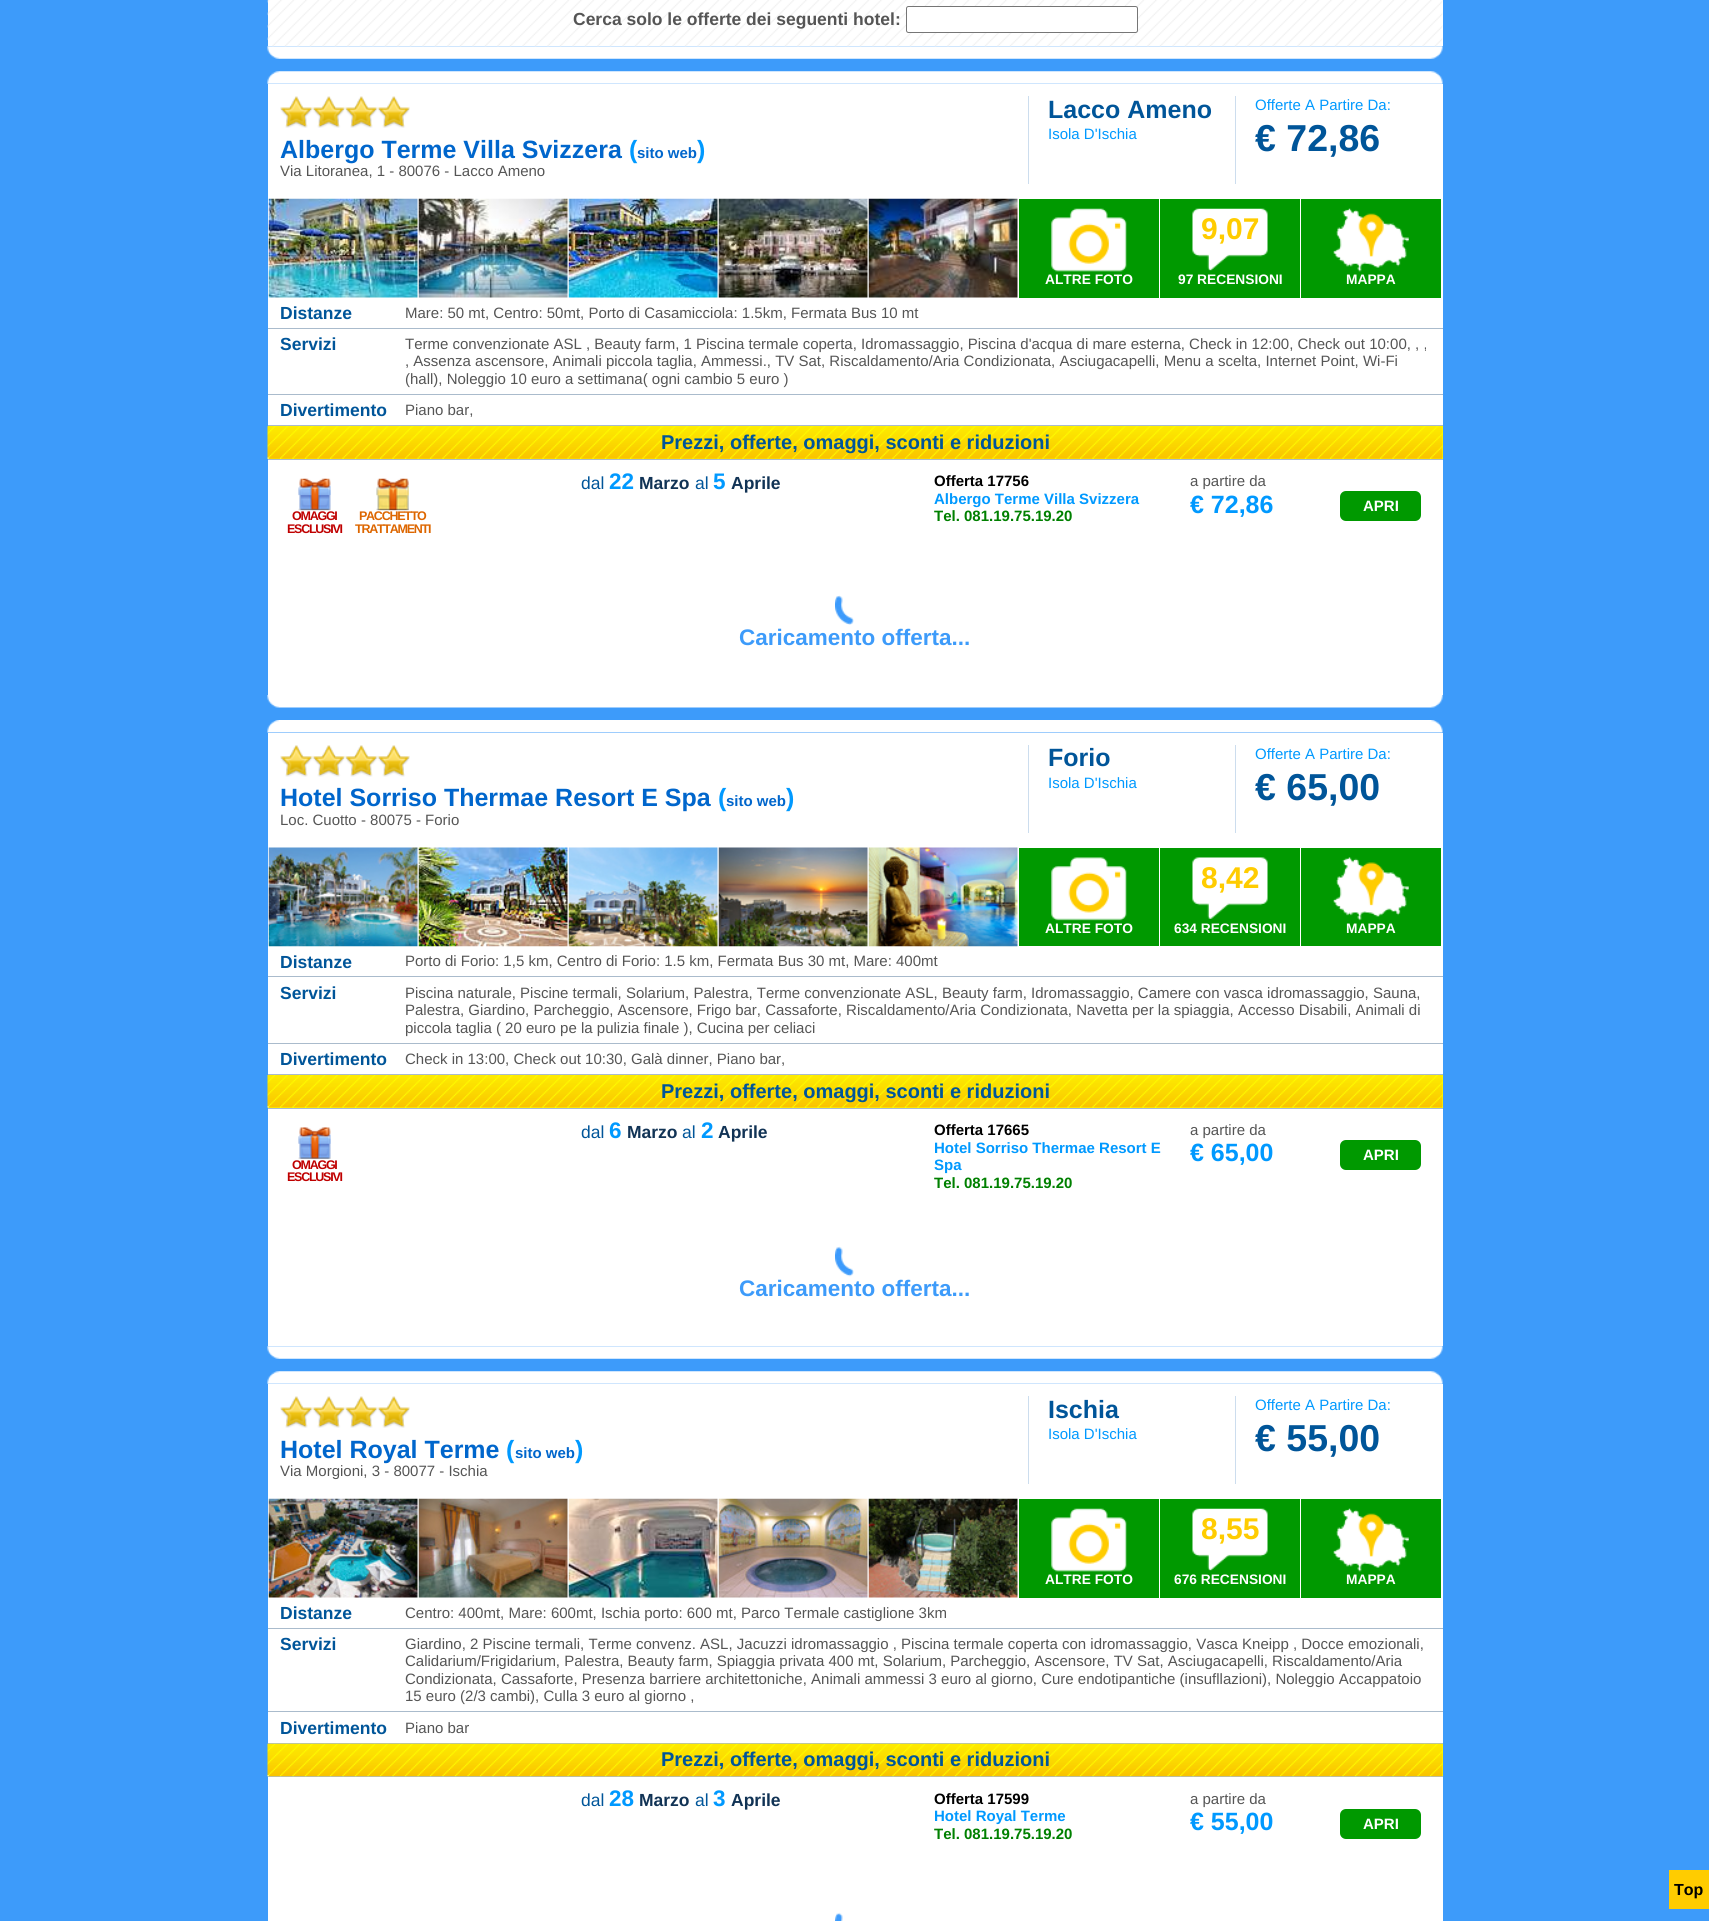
import math
import cairocffi as cairo

surface = cairo.ImageSurface(cairo.FORMAT_RGB24, 1709, 1921)
cr = cairo.Context(surface)
options = cairo.FontOptions()
options.set_hint_metrics(cairo.HINT_METRICS_OFF)
options.set_hint_style(cairo.HINT_STYLE_NONE)
cr.set_font_options(options)
cr.set_miter_limit(4)


def use_color(code):
    cr.set_source_rgb(*(v / 255 for v in bytes.fromhex(code[-6:])))


def spaced_text(x, y, s, letter, word):
    cr.move_to(x, y)
    for ch in s:
        cr.show_text(ch)
        cr.rel_move_to(letter + word * (ch == ' '), 0)


def round_rect(x, y, w, h, r):
    cr.new_sub_path()
    for i, (u, v) in enumerate([(x + w - r, y + h - r), (x + r, y + h - r), (x + r, y + r), (x + w - r, y + r)]):
        cr.arc(u, v, r, i * math.pi / 2, (i + 1) * math.pi / 2)
    cr.close_path()


def picture(path, x, y, w, h):
    cr.save()
    cr.set_source_surface(cairo.ImageSurface.create_from_png(path), x, y)
    cr.rectangle(x, y, w, h)
    cr.fill()
    cr.restore()


use_color("#3d9bfa")
cr.paint()
use_color("#ffffff")
cr.rectangle(268, 0, 1175, 46)
cr.fill()
picture("img1.png", 267, 0, 1176, 47)
cr.select_font_face("Liberation Sans", cairo.FONT_SLANT_NORMAL, cairo.FONT_WEIGHT_BOLD)
cr.set_font_size(17.5)
use_color("#555555")
cr.move_to(573, 25)
cr.show_text("Cerca solo le offerte dei seguenti hotel:")
use_color("#ffffff")
round_rect(906.5, 6.5, 231, 26, 2)
cr.fill_preserve()
use_color("#767676")
cr.set_line_width(1)
cr.stroke()
picture("img2.png", 267, 46, 1176, 13)
picture("img3.png", 267, 71, 1176, 13)
use_color("#ffffff")
cr.rectangle(268, 84, 1175, 611)
cr.fill()
use_color("#ccddee")
cr.rectangle(1028, 96, 1, 88)
cr.fill()
cr.set_font_size(25)
use_color("#005599")
cr.move_to(1048, 118)
cr.show_text("Lacco Ameno")
cr.select_font_face("Liberation Sans")
cr.set_font_size(15)
use_color("#0099ff")
cr.move_to(1048, 139)
cr.show_text("Isola D'Ischia")
use_color("#ccddee")
cr.rectangle(1235, 96, 1, 88)
cr.fill()
use_color("#0099ff")
cr.move_to(1255, 110)
cr.show_text("Offerte A Partire Da:")
cr.select_font_face("Liberation Sans", cairo.FONT_SLANT_NORMAL, cairo.FONT_WEIGHT_BOLD)
cr.set_font_size(37.5)
use_color("#005599")
cr.move_to(1255, 151)
cr.show_text("€ 72,86")
picture("img4.png", 280, 96, 130, 32)
cr.set_font_size(25)
use_color("#0066cc")
cr.move_to(280, 158)
cr.show_text("Albergo Terme Villa Svizzera")
use_color("#0099ff")
cr.move_to(629, 158)
cr.show_text("(")
cr.set_font_size(15)
use_color("#0066cc")
cr.move_to(637, 158)
cr.show_text("sito web")
cr.set_font_size(25)
use_color("#0099ff")
cr.move_to(697, 158)
cr.show_text(")")
cr.select_font_face("Liberation Sans")
cr.set_font_size(15)
use_color("#555555")
cr.move_to(280, 176)
cr.show_text("Via Litoranea, 1 - 80076 - Lacco Ameno")
picture("img5.png", 268, 198, 150, 100)
picture("img6.png", 418, 198, 150, 100)
picture("img7.png", 568, 198, 150, 100)
picture("img8.png", 718, 198, 150, 100)
picture("img9.png", 868, 198, 150, 100)
use_color("#009900")
cr.rectangle(1019, 199, 140, 99)
cr.fill()
picture("img10.png", 1051, 208, 76, 64)
cr.select_font_face("Liberation Sans", cairo.FONT_SLANT_NORMAL, cairo.FONT_WEIGHT_BOLD)
cr.set_font_size(13.75)
use_color("#ffffff")
cr.move_to(1045, 284)
cr.show_text("ALTRE FOTO")
use_color("#009900")
cr.rectangle(1160, 199, 140, 99)
cr.fill()
picture("img11.png", 1192, 208, 76, 63)
cr.set_font_size(30)
use_color("#ffcc00")
cr.move_to(1201, 239)
cr.show_text("9,07")
cr.set_font_size(13.75)
use_color("#ffffff")
cr.move_to(1178, 284)
cr.show_text("97 RECENSIONI")
use_color("#009900")
cr.rectangle(1301, 199, 140, 99)
cr.fill()
picture("img12.png", 1333, 208, 76, 64)
use_color("#ffffff")
cr.move_to(1346, 284)
cr.show_text("MAPPA")
use_color("#aabbcc")
cr.rectangle(268, 328, 1175, 1)
cr.fill()
cr.set_font_size(17.5)
use_color("#005599")
cr.move_to(280, 319)
cr.show_text("Distanze")
cr.select_font_face("Liberation Sans")
cr.set_font_size(15)
use_color("#555555")
cr.move_to(405, 318)
cr.show_text("Mare: 50 mt, Centro: 50mt, Porto di Casamicciola: 1.5km, Fermata Bus 10 mt")
use_color("#aabbcc")
cr.rectangle(268, 394, 1175, 1)
cr.fill()
cr.select_font_face("Liberation Sans", cairo.FONT_SLANT_NORMAL, cairo.FONT_WEIGHT_BOLD)
cr.set_font_size(17.5)
use_color("#005599")
cr.move_to(280, 350)
cr.show_text("Servizi")
cr.select_font_face("Liberation Sans")
cr.set_font_size(15)
use_color("#555555")
cr.move_to(405, 349)
cr.show_text("Terme convenzionate ASL , Beauty farm, 1 Piscina termale coperta, Idromassaggio, Piscina d'acqua di mare esterna, Check in 12:00, Check out 10:00, , ,")
cr.move_to(405, 366)
cr.show_text(", Assenza ascensore, Animali piccola taglia, Ammessi., TV Sat, Riscaldamento/Aria Condizionata, Asciugacapelli, Menu a scelta, Internet Point, Wi-Fi")
cr.move_to(405, 384)
cr.show_text("(hall), Noleggio 10 euro a settimana( ogni cambio 5 euro )")
use_color("#aabbcc")
cr.rectangle(268, 425, 1175, 1)
cr.fill()
cr.select_font_face("Liberation Sans", cairo.FONT_SLANT_NORMAL, cairo.FONT_WEIGHT_BOLD)
cr.set_font_size(17.5)
use_color("#005599")
cr.move_to(280, 416)
cr.show_text("Divertimento")
cr.select_font_face("Liberation Sans")
cr.set_font_size(15)
use_color("#555555")
cr.move_to(405, 415)
cr.show_text("Piano bar,")
use_color("#ffff00")
cr.rectangle(268, 426, 1175, 33)
cr.fill()
picture("img13.png", 267, 426, 1176, 33)
cr.select_font_face("Liberation Sans", cairo.FONT_SLANT_NORMAL, cairo.FONT_WEIGHT_BOLD)
cr.set_font_size(20)
use_color("#005599")
cr.move_to(661, 449)
cr.show_text("Prezzi, offerte, omaggi, sconti e riduzioni")
picture("img14.png", 267, 457, 2, 2)
use_color("#aabbcc")
cr.rectangle(268, 459, 1175, 1)
cr.fill()
cr.select_font_face("Liberation Sans")
cr.set_font_size(17.5)
use_color("#005599")
cr.move_to(581, 489)
cr.show_text("dal")
cr.select_font_face("Liberation Sans", cairo.FONT_SLANT_NORMAL, cairo.FONT_WEIGHT_BOLD)
cr.set_font_size(22.5)
use_color("#0099ff")
cr.move_to(609, 489)
cr.show_text("22")
cr.set_font_size(17.5)
use_color("#113355")
cr.move_to(639, 489)
cr.show_text("Marzo")
cr.select_font_face("Liberation Sans")
use_color("#005599")
cr.move_to(695, 489)
cr.show_text("al")
cr.select_font_face("Liberation Sans", cairo.FONT_SLANT_NORMAL, cairo.FONT_WEIGHT_BOLD)
cr.set_font_size(22.5)
use_color("#0099ff")
cr.move_to(713, 489)
cr.show_text("5")
cr.set_font_size(17.5)
use_color("#113355")
cr.move_to(731, 489)
cr.show_text("Aprile")
cr.set_font_size(15)
use_color("#000000")
cr.move_to(934, 486)
cr.show_text("Offerta 17756")
use_color("#0099ff")
cr.move_to(934, 504)
cr.show_text("Albergo Terme Villa Svizzera")
use_color("#008000")
cr.move_to(934, 521)
cr.show_text("Tel. 081.19.75.19.20")
cr.select_font_face("Liberation Sans")
use_color("#555555")
cr.move_to(1190, 486)
cr.show_text("a partire da")
cr.select_font_face("Liberation Sans", cairo.FONT_SLANT_NORMAL, cairo.FONT_WEIGHT_BOLD)
cr.set_font_size(25)
use_color("#0099ff")
cr.move_to(1190, 513)
cr.show_text("€ 72,86")
use_color("#009900")
round_rect(1340, 491, 81, 30, 6)
cr.fill()
cr.set_font_size(15)
use_color("#ffffff")
cr.move_to(1363, 511)
cr.show_text("APRI")
picture("img15.png", 298, 478, 33, 33)
cr.set_font_size(12.5)
use_color("#bf0000")
spaced_text(292, 520, "OMAGGI", -1.25, 0)
spaced_text(287, 533, "ESCLUSIVI", -1.25, 0)
picture("img16.png", 376, 478, 33, 33)
use_color("#dd6600")
spaced_text(359, 520, "PACCHETTO", -1.25, 0)
spaced_text(355, 533, "TRATTAMENTI", -1.25, 0)
picture("img17.png", 835, 595, 19, 30)
cr.set_font_size(22.5)
use_color("#3d9bfa")
cr.move_to(739, 645)
cr.show_text("Caricamento offerta...")
picture("img18.png", 267, 695, 1176, 13)
picture("img19.png", 267, 720, 1176, 13)
use_color("#ffffff")
cr.rectangle(268, 733, 1175, 613)
cr.fill()
picture("img20.png", 280, 745, 130, 32)
cr.set_font_size(25)
use_color("#0066cc")
cr.move_to(280, 806)
cr.show_text("Hotel Sorriso Thermae Resort E Spa")
use_color("#0099ff")
cr.move_to(718, 806)
cr.show_text("(")
cr.set_font_size(15)
use_color("#0066cc")
cr.move_to(726, 806)
cr.show_text("sito web")
cr.set_font_size(25)
use_color("#0099ff")
cr.move_to(786, 806)
cr.show_text(")")
cr.select_font_face("Liberation Sans")
cr.set_font_size(15)
use_color("#555555")
cr.move_to(280, 825)
cr.show_text("Loc. Cuotto - 80075 - Forio")
use_color("#ccddee")
cr.rectangle(1028, 745, 1, 88)
cr.fill()
cr.select_font_face("Liberation Sans", cairo.FONT_SLANT_NORMAL, cairo.FONT_WEIGHT_BOLD)
cr.set_font_size(25)
use_color("#005599")
cr.move_to(1048, 766)
cr.show_text("Forio")
cr.select_font_face("Liberation Sans")
cr.set_font_size(15)
use_color("#0099ff")
cr.move_to(1048, 788)
cr.show_text("Isola D'Ischia")
use_color("#ccddee")
cr.rectangle(1235, 745, 1, 88)
cr.fill()
use_color("#0099ff")
cr.move_to(1255, 759)
cr.show_text("Offerte A Partire Da:")
cr.select_font_face("Liberation Sans", cairo.FONT_SLANT_NORMAL, cairo.FONT_WEIGHT_BOLD)
cr.set_font_size(37.5)
use_color("#005599")
cr.move_to(1255, 800)
cr.show_text("€ 65,00")
picture("img21.png", 268, 847, 150, 100)
picture("img22.png", 418, 847, 150, 100)
picture("img23.png", 568, 847, 150, 100)
picture("img24.png", 718, 847, 150, 100)
picture("img25.png", 868, 847, 150, 100)
use_color("#009900")
cr.rectangle(1019, 848, 140, 98)
cr.fill()
picture("img26.png", 1051, 857, 76, 64)
cr.set_font_size(13.75)
use_color("#ffffff")
cr.move_to(1045, 933)
cr.show_text("ALTRE FOTO")
use_color("#009900")
cr.rectangle(1160, 848, 140, 98)
cr.fill()
picture("img27.png", 1192, 857, 76, 62)
cr.set_font_size(30)
use_color("#ffcc00")
cr.move_to(1201, 888)
cr.show_text("8,42")
cr.set_font_size(13.75)
use_color("#ffffff")
cr.move_to(1174, 933)
cr.show_text("634 RECENSIONI")
use_color("#009900")
cr.rectangle(1301, 848, 140, 98)
cr.fill()
picture("img28.png", 1333, 857, 76, 64)
use_color("#ffffff")
cr.move_to(1346, 933)
cr.show_text("MAPPA")
use_color("#aabbcc")
cr.rectangle(268, 976, 1175, 1)
cr.fill()
cr.set_font_size(17.5)
use_color("#005599")
cr.move_to(280, 968)
cr.show_text("Distanze")
cr.select_font_face("Liberation Sans")
cr.set_font_size(15)
use_color("#555555")
cr.move_to(405, 966)
cr.show_text("Porto di Forio: 1,5 km, Centro di Forio: 1.5 km, Fermata Bus 30 mt, Mare: 400mt")
use_color("#aabbcc")
cr.rectangle(268, 1043, 1175, 1)
cr.fill()
cr.select_font_face("Liberation Sans", cairo.FONT_SLANT_NORMAL, cairo.FONT_WEIGHT_BOLD)
cr.set_font_size(17.5)
use_color("#005599")
cr.move_to(280, 999)
cr.show_text("Servizi")
cr.select_font_face("Liberation Sans")
cr.set_font_size(15)
use_color("#555555")
cr.move_to(405, 998)
cr.show_text("Piscina naturale, Piscine termali, Solarium, Palestra, Terme convenzionate ASL, Beauty farm, Idromassaggio, Camere con vasca idromassaggio, Sauna,")
cr.move_to(405, 1015)
cr.show_text("Palestra, Giardino, Parcheggio, Ascensore, Frigo bar, Cassaforte, Riscaldamento/Aria Condizionata, Navetta per la spiaggia, Accesso Disabili, Animali di")
cr.move_to(405, 1033)
cr.show_text("piccola taglia ( 20 euro pe la pulizia finale ), Cucina per celiaci")
use_color("#aabbcc")
cr.rectangle(268, 1074, 1175, 1)
cr.fill()
cr.select_font_face("Liberation Sans", cairo.FONT_SLANT_NORMAL, cairo.FONT_WEIGHT_BOLD)
cr.set_font_size(17.5)
use_color("#005599")
cr.move_to(280, 1065)
cr.show_text("Divertimento")
cr.select_font_face("Liberation Sans")
cr.set_font_size(15)
use_color("#555555")
cr.move_to(405, 1064)
cr.show_text("Check in 13:00, Check out 10:30, Galà dinner, Piano bar,")
use_color("#ffff00")
cr.rectangle(268, 1075, 1175, 33)
cr.fill()
picture("img29.png", 267, 1075, 1176, 33)
cr.select_font_face("Liberation Sans", cairo.FONT_SLANT_NORMAL, cairo.FONT_WEIGHT_BOLD)
cr.set_font_size(20)
use_color("#005599")
cr.move_to(661, 1098)
cr.show_text("Prezzi, offerte, omaggi, sconti e riduzioni")
picture("img30.png", 267, 1106, 2, 2)
use_color("#aabbcc")
cr.rectangle(268, 1108, 1175, 1)
cr.fill()
cr.select_font_face("Liberation Sans")
cr.set_font_size(17.5)
use_color("#005599")
cr.move_to(581, 1138)
cr.show_text("dal")
cr.select_font_face("Liberation Sans", cairo.FONT_SLANT_NORMAL, cairo.FONT_WEIGHT_BOLD)
cr.set_font_size(22.5)
use_color("#0099ff")
cr.move_to(609, 1138)
cr.show_text("6")
cr.set_font_size(17.5)
use_color("#113355")
cr.move_to(627, 1138)
cr.show_text("Marzo")
cr.select_font_face("Liberation Sans")
use_color("#005599")
cr.move_to(682, 1138)
cr.show_text("al")
cr.select_font_face("Liberation Sans", cairo.FONT_SLANT_NORMAL, cairo.FONT_WEIGHT_BOLD)
cr.set_font_size(22.5)
use_color("#0099ff")
cr.move_to(701, 1138)
cr.show_text("2")
cr.set_font_size(17.5)
use_color("#113355")
cr.move_to(718, 1138)
cr.show_text("Aprile")
cr.set_font_size(15)
use_color("#000000")
cr.move_to(934, 1135)
cr.show_text("Offerta 17665")
use_color("#0099ff")
cr.move_to(934, 1153)
cr.show_text("Hotel Sorriso Thermae Resort E")
cr.move_to(934, 1170)
cr.show_text("Spa")
use_color("#008000")
cr.move_to(934, 1188)
cr.show_text("Tel. 081.19.75.19.20")
cr.select_font_face("Liberation Sans")
use_color("#555555")
cr.move_to(1190, 1135)
cr.show_text("a partire da")
cr.select_font_face("Liberation Sans", cairo.FONT_SLANT_NORMAL, cairo.FONT_WEIGHT_BOLD)
cr.set_font_size(25)
use_color("#0099ff")
cr.move_to(1190, 1161)
cr.show_text("€ 65,00")
use_color("#009900")
round_rect(1340, 1140, 81, 30, 6)
cr.fill()
cr.set_font_size(15)
use_color("#ffffff")
cr.move_to(1363, 1160)
cr.show_text("APRI")
picture("img31.png", 298, 1127, 33, 32)
cr.set_font_size(12.5)
use_color("#bf0000")
spaced_text(292, 1169, "OMAGGI", -1.25, 0)
spaced_text(287, 1181, "ESCLUSIVI", -1.25, 0)
picture("img32.png", 835, 1246, 19, 31)
cr.set_font_size(22.5)
use_color("#3d9bfa")
cr.move_to(739, 1296)
cr.show_text("Caricamento offerta...")
picture("img33.png", 267, 1346, 1176, 13)
picture("img3.png", 267, 1371, 1176, 13)
use_color("#ffffff")
cr.rectangle(268, 1384, 1175, 537)
cr.fill()
picture("img4.png", 280, 1396, 130, 32)
cr.set_font_size(25)
use_color("#0066cc")
cr.move_to(280, 1458)
cr.show_text("Hotel Royal Terme")
use_color("#0099ff")
cr.move_to(506, 1458)
cr.show_text("(")
cr.set_font_size(15)
use_color("#0066cc")
cr.move_to(515, 1458)
cr.show_text("sito web")
cr.set_font_size(25)
use_color("#0099ff")
cr.move_to(575, 1458)
cr.show_text(")")
cr.select_font_face("Liberation Sans")
cr.set_font_size(15)
use_color("#555555")
cr.move_to(280, 1476)
cr.show_text("Via Morgioni, 3 - 80077 - Ischia")
use_color("#ccddee")
cr.rectangle(1028, 1396, 1, 88)
cr.fill()
cr.select_font_face("Liberation Sans", cairo.FONT_SLANT_NORMAL, cairo.FONT_WEIGHT_BOLD)
cr.set_font_size(25)
use_color("#005599")
cr.move_to(1048, 1418)
cr.show_text("Ischia")
cr.select_font_face("Liberation Sans")
cr.set_font_size(15)
use_color("#0099ff")
cr.move_to(1048, 1439)
cr.show_text("Isola D'Ischia")
use_color("#ccddee")
cr.rectangle(1235, 1396, 1, 88)
cr.fill()
use_color("#0099ff")
cr.move_to(1255, 1410)
cr.show_text("Offerte A Partire Da:")
cr.select_font_face("Liberation Sans", cairo.FONT_SLANT_NORMAL, cairo.FONT_WEIGHT_BOLD)
cr.set_font_size(37.5)
use_color("#005599")
cr.move_to(1255, 1451)
cr.show_text("€ 55,00")
picture("img34.png", 268, 1498, 150, 100)
picture("img35.png", 418, 1498, 150, 100)
picture("img36.png", 568, 1498, 150, 100)
picture("img37.png", 718, 1498, 150, 100)
picture("img38.png", 868, 1498, 150, 100)
use_color("#009900")
cr.rectangle(1019, 1499, 140, 99)
cr.fill()
picture("img10.png", 1051, 1508, 76, 64)
cr.set_font_size(13.75)
use_color("#ffffff")
cr.move_to(1045, 1584)
cr.show_text("ALTRE FOTO")
use_color("#009900")
cr.rectangle(1160, 1499, 140, 99)
cr.fill()
picture("img11.png", 1192, 1508, 76, 63)
cr.set_font_size(30)
use_color("#ffcc00")
cr.move_to(1201, 1539)
cr.show_text("8,55")
cr.set_font_size(13.75)
use_color("#ffffff")
cr.move_to(1174, 1584)
cr.show_text("676 RECENSIONI")
use_color("#009900")
cr.rectangle(1301, 1499, 140, 99)
cr.fill()
picture("img12.png", 1333, 1508, 76, 64)
use_color("#ffffff")
cr.move_to(1346, 1584)
cr.show_text("MAPPA")
use_color("#aabbcc")
cr.rectangle(268, 1628, 1175, 1)
cr.fill()
cr.set_font_size(17.5)
use_color("#005599")
cr.move_to(280, 1619)
cr.show_text("Distanze")
cr.select_font_face("Liberation Sans")
cr.set_font_size(15)
use_color("#555555")
cr.move_to(405, 1618)
cr.show_text("Centro: 400mt, Mare: 600mt, Ischia porto: 600 mt, Parco Termale castiglione 3km")
use_color("#aabbcc")
cr.rectangle(268, 1711, 1175, 1)
cr.fill()
cr.select_font_face("Liberation Sans", cairo.FONT_SLANT_NORMAL, cairo.FONT_WEIGHT_BOLD)
cr.set_font_size(17.5)
use_color("#005599")
cr.move_to(280, 1650)
cr.show_text("Servizi")
cr.select_font_face("Liberation Sans")
cr.set_font_size(15)
use_color("#555555")
cr.move_to(405, 1649)
cr.show_text("Giardino, 2 Piscine termali, Terme convenz. ASL, Jacuzzi idromassaggio , Piscina termale coperta con idromassaggio, Vasca Kneipp , Docce emozionali,")
cr.move_to(405, 1666)
cr.show_text("Calidarium/Frigidarium, Palestra, Beauty farm, Spiaggia privata 400 mt, Solarium, Parcheggio, Ascensore, TV Sat, Asciugacapelli, Riscaldamento/Aria")
cr.move_to(405, 1684)
cr.show_text("Condizionata, Cassaforte, Presenza barriere architettoniche, Animali ammessi 3 euro al giorno, Cure endotipantiche (insufllazioni), Noleggio Accappatoio")
cr.move_to(405, 1701)
cr.show_text("15 euro (2/3 cambi), Culla 3 euro al giorno ,")
use_color("#aabbcc")
cr.rectangle(268, 1743, 1175, 1)
cr.fill()
cr.select_font_face("Liberation Sans", cairo.FONT_SLANT_NORMAL, cairo.FONT_WEIGHT_BOLD)
cr.set_font_size(17.5)
use_color("#005599")
cr.move_to(280, 1734)
cr.show_text("Divertimento")
cr.select_font_face("Liberation Sans")
cr.set_font_size(15)
use_color("#555555")
cr.move_to(405, 1733)
cr.show_text("Piano bar")
use_color("#ffff00")
cr.rectangle(1442, 1744, 1, 32)
cr.fill()
use_color("#aabbcc")
cr.rectangle(268, 1776, 1175, 1)
cr.fill()
picture("img39.png", 267, 1743, 1176, 34)
cr.select_font_face("Liberation Sans", cairo.FONT_SLANT_NORMAL, cairo.FONT_WEIGHT_BOLD)
cr.set_font_size(20)
use_color("#005599")
cr.move_to(661, 1766)
cr.show_text("Prezzi, offerte, omaggi, sconti e riduzioni")
picture("img40.png", 267, 1775, 2, 2)
cr.select_font_face("Liberation Sans")
cr.set_font_size(17.5)
cr.move_to(581, 1806)
cr.show_text("dal")
cr.select_font_face("Liberation Sans", cairo.FONT_SLANT_NORMAL, cairo.FONT_WEIGHT_BOLD)
cr.set_font_size(22.5)
use_color("#0099ff")
cr.move_to(609, 1806)
cr.show_text("28")
cr.set_font_size(17.5)
use_color("#113355")
cr.move_to(639, 1806)
cr.show_text("Marzo")
cr.select_font_face("Liberation Sans")
use_color("#005599")
cr.move_to(695, 1806)
cr.show_text("al")
cr.select_font_face("Liberation Sans", cairo.FONT_SLANT_NORMAL, cairo.FONT_WEIGHT_BOLD)
cr.set_font_size(22.5)
use_color("#0099ff")
cr.move_to(713, 1806)
cr.show_text("3")
cr.set_font_size(17.5)
use_color("#113355")
cr.move_to(731, 1806)
cr.show_text("Aprile")
cr.set_font_size(15)
use_color("#000000")
cr.move_to(934, 1804)
cr.show_text("Offerta 17599")
use_color("#0099ff")
cr.move_to(934, 1821)
cr.show_text("Hotel Royal Terme")
use_color("#008000")
cr.move_to(934, 1839)
cr.show_text("Tel. 081.19.75.19.20")
cr.select_font_face("Liberation Sans")
use_color("#555555")
cr.move_to(1190, 1804)
cr.show_text("a partire da")
cr.select_font_face("Liberation Sans", cairo.FONT_SLANT_NORMAL, cairo.FONT_WEIGHT_BOLD)
cr.set_font_size(25)
use_color("#0099ff")
cr.move_to(1190, 1830)
cr.show_text("€ 55,00")
use_color("#009900")
round_rect(1340, 1809, 81, 30, 6)
cr.fill()
cr.set_font_size(15)
use_color("#ffffff")
cr.move_to(1363, 1829)
cr.show_text("APRI")
picture("img41.png", 835, 1912, 8, 9)
use_color("#ffcc00")
cr.rectangle(1669, 1870, 40, 39)
cr.fill()
cr.set_font_size(16)
use_color("#000000")
cr.move_to(1674, 1895)
cr.show_text("Top")
surface.write_to_png("result.png")
